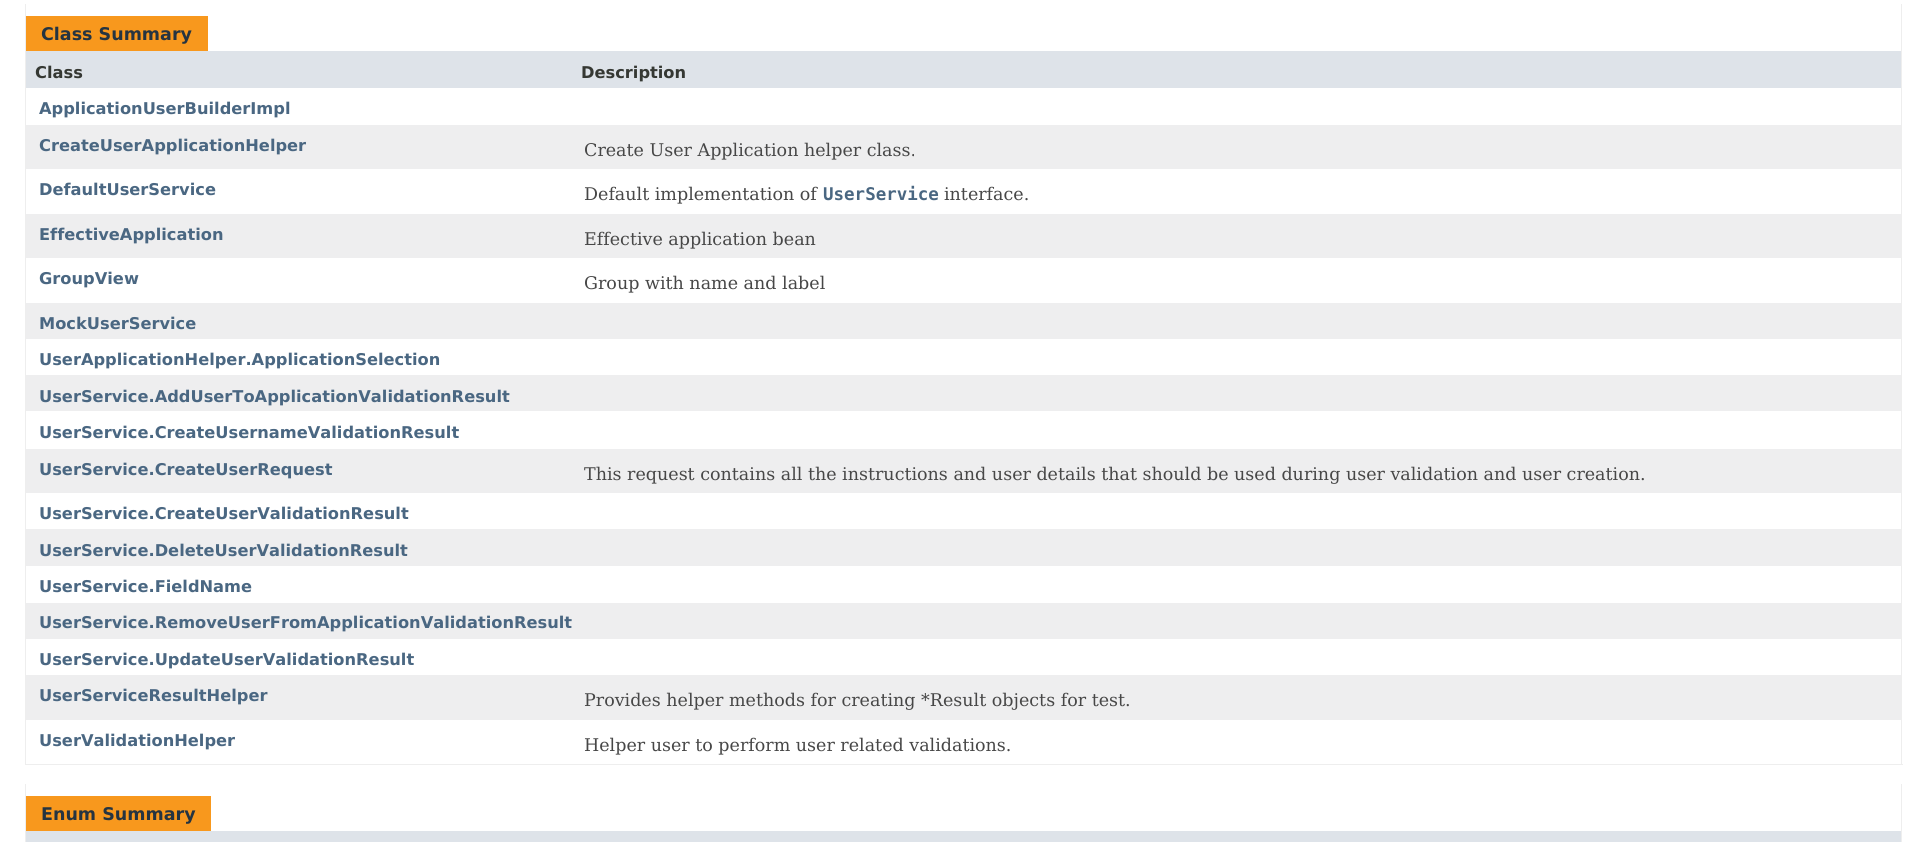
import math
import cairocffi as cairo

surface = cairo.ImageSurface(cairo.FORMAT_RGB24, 1927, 842)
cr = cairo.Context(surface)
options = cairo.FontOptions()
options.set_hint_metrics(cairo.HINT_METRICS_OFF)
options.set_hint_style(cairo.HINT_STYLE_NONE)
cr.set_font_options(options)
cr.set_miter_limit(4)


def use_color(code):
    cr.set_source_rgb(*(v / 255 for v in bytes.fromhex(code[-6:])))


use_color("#ffffff")
cr.paint()
use_color("#eeeeee")
cr.rectangle(1901, 4, 1, 761)
cr.fill()
cr.rectangle(25, 764, 1878, 1)
cr.fill()
cr.rectangle(25, 4, 1, 761)
cr.fill()
use_color("#f8981d")
cr.rectangle(26, 16, 182, 35)
cr.fill()
cr.select_font_face("DejaVu Sans", cairo.FONT_SLANT_NORMAL, cairo.FONT_WEIGHT_BOLD)
cr.set_font_size(17.5)
use_color("#253441")
cr.move_to(41, 40)
cr.show_text("Class Summary")
use_color("#dee3e9")
cr.rectangle(26, 51, 1875, 37)
cr.fill()
cr.set_font_size(16.25)
use_color("#353833")
cr.move_to(35, 78)
cr.show_text("Class")
cr.move_to(581, 78)
cr.show_text("Description")
use_color("#4a6782")
cr.move_to(39, 114)
cr.show_text("ApplicationUserBuilderImpl")
use_color("#eeeeef")
cr.rectangle(26, 125, 1875, 44)
cr.fill()
use_color("#4a6782")
cr.move_to(39, 151)
cr.show_text("CreateUserApplicationHelper")
cr.select_font_face("DejaVu Serif")
cr.set_font_size(17.5)
use_color("#474747")
cr.move_to(584, 156)
cr.show_text("Create User Application helper class.")
cr.select_font_face("DejaVu Sans", cairo.FONT_SLANT_NORMAL, cairo.FONT_WEIGHT_BOLD)
cr.set_font_size(16.25)
use_color("#4a6782")
cr.move_to(39, 195)
cr.show_text("DefaultUserService")
cr.select_font_face("DejaVu Serif")
cr.set_font_size(17.5)
use_color("#474747")
cr.move_to(584, 200)
cr.show_text("Default implementation of")
cr.select_font_face("DejaVu Sans Mono", cairo.FONT_SLANT_NORMAL, cairo.FONT_WEIGHT_BOLD)
use_color("#4a6782")
cr.move_to(823, 200)
cr.show_text("UserService")
cr.select_font_face("DejaVu Serif")
use_color("#474747")
cr.move_to(944, 200)
cr.show_text("interface.")
use_color("#eeeeef")
cr.rectangle(26, 214, 1875, 44)
cr.fill()
cr.select_font_face("DejaVu Sans", cairo.FONT_SLANT_NORMAL, cairo.FONT_WEIGHT_BOLD)
cr.set_font_size(16.25)
use_color("#4a6782")
cr.move_to(39, 240)
cr.show_text("EffectiveApplication")
cr.select_font_face("DejaVu Serif")
cr.set_font_size(17.5)
use_color("#474747")
cr.move_to(584, 245)
cr.show_text("Effective application bean")
cr.select_font_face("DejaVu Sans", cairo.FONT_SLANT_NORMAL, cairo.FONT_WEIGHT_BOLD)
cr.set_font_size(16.25)
use_color("#4a6782")
cr.move_to(39, 284)
cr.show_text("GroupView")
cr.select_font_face("DejaVu Serif")
cr.set_font_size(17.5)
use_color("#474747")
cr.move_to(584, 289)
cr.show_text("Group with name and label")
use_color("#eeeeef")
cr.rectangle(26, 303, 1875, 36)
cr.fill()
cr.select_font_face("DejaVu Sans", cairo.FONT_SLANT_NORMAL, cairo.FONT_WEIGHT_BOLD)
cr.set_font_size(16.25)
use_color("#4a6782")
cr.move_to(39, 329)
cr.show_text("MockUserService")
cr.move_to(39, 365)
cr.show_text("UserApplicationHelper.ApplicationSelection")
use_color("#eeeeef")
cr.rectangle(26, 375, 1875, 36)
cr.fill()
use_color("#4a6782")
cr.move_to(39, 402)
cr.show_text("UserService.AddUserToApplicationValidationResult")
cr.move_to(39, 438)
cr.show_text("UserService.CreateUsernameValidationResult")
use_color("#eeeeef")
cr.rectangle(26, 449, 1875, 44)
cr.fill()
use_color("#4a6782")
cr.move_to(39, 475)
cr.show_text("UserService.CreateUserRequest")
cr.select_font_face("DejaVu Serif")
cr.set_font_size(17.5)
use_color("#474747")
cr.move_to(584, 480)
cr.show_text("This request contains all the instructions and user details that should be used during user validation and user creation.")
cr.select_font_face("DejaVu Sans", cairo.FONT_SLANT_NORMAL, cairo.FONT_WEIGHT_BOLD)
cr.set_font_size(16.25)
use_color("#4a6782")
cr.move_to(39, 519)
cr.show_text("UserService.CreateUserValidationResult")
use_color("#eeeeef")
cr.rectangle(26, 529, 1875, 37)
cr.fill()
use_color("#4a6782")
cr.move_to(39, 556)
cr.show_text("UserService.DeleteUserValidationResult")
cr.move_to(39, 592)
cr.show_text("UserService.FieldName")
use_color("#eeeeef")
cr.rectangle(26, 603, 1875, 36)
cr.fill()
use_color("#4a6782")
cr.move_to(39, 628)
cr.show_text("UserService.RemoveUserFromApplicationValidationResult")
cr.move_to(39, 665)
cr.show_text("UserService.UpdateUserValidationResult")
use_color("#eeeeef")
cr.rectangle(26, 675, 1875, 45)
cr.fill()
use_color("#4a6782")
cr.move_to(39, 701)
cr.show_text("UserServiceResultHelper")
cr.select_font_face("DejaVu Serif")
cr.set_font_size(17.5)
use_color("#474747")
cr.move_to(584, 706)
cr.show_text("Provides helper methods for creating *Result objects for test.")
cr.select_font_face("DejaVu Sans", cairo.FONT_SLANT_NORMAL, cairo.FONT_WEIGHT_BOLD)
cr.set_font_size(16.25)
use_color("#4a6782")
cr.move_to(39, 746)
cr.show_text("UserValidationHelper")
cr.select_font_face("DejaVu Serif")
cr.set_font_size(17.5)
use_color("#474747")
cr.move_to(584, 751)
cr.show_text("Helper user to perform user related validations.")
use_color("#eeeeee")
cr.rectangle(1901, 784, 1, 58)
cr.fill()
cr.rectangle(25, 784, 1, 58)
cr.fill()
use_color("#f8981d")
cr.rectangle(26, 796, 185, 35)
cr.fill()
cr.select_font_face("DejaVu Sans", cairo.FONT_SLANT_NORMAL, cairo.FONT_WEIGHT_BOLD)
use_color("#253441")
cr.move_to(41, 820)
cr.show_text("Enum Summary")
use_color("#dee3e9")
cr.rectangle(26, 831, 1875, 11)
cr.fill()
surface.write_to_png("result.png")
